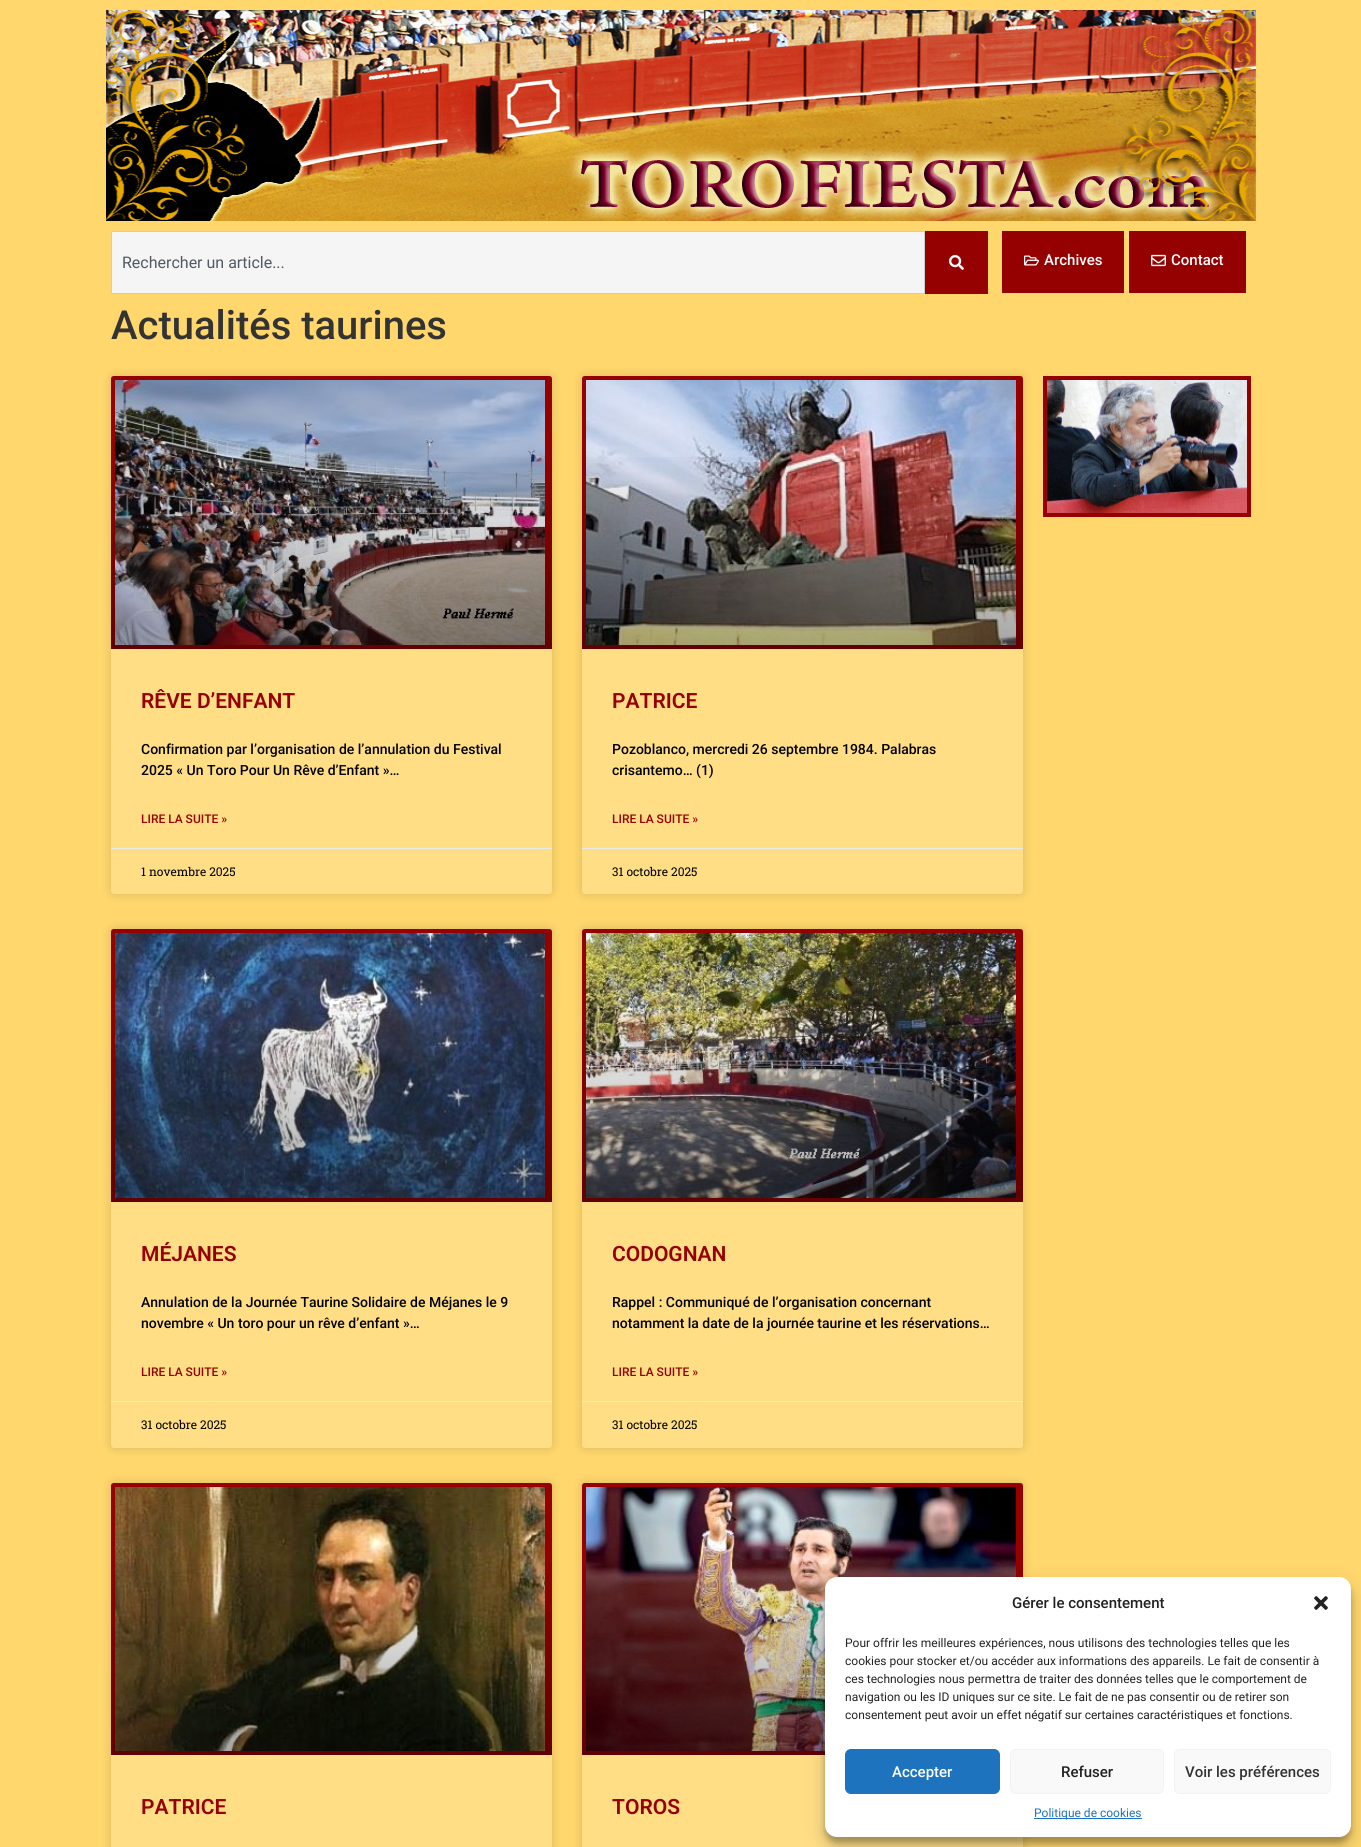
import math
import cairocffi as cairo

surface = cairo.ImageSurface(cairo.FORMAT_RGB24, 1361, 1847)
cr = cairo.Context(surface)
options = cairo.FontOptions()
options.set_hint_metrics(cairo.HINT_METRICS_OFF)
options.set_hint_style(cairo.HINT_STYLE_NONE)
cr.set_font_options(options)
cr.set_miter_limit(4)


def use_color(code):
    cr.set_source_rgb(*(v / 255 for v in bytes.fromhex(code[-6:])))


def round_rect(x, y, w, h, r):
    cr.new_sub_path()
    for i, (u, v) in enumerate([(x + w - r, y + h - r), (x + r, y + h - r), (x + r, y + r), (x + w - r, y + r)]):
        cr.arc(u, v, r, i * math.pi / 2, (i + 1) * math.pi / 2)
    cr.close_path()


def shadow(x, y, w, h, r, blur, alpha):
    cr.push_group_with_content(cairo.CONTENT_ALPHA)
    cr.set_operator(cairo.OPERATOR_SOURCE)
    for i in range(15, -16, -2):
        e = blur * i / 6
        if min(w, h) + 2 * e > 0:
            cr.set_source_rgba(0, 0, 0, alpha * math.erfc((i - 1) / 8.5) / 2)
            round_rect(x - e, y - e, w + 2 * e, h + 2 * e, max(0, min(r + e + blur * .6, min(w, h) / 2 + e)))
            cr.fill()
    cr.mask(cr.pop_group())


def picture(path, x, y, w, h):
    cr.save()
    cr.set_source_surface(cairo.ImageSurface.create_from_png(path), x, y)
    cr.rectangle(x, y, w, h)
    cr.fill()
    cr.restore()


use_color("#ffd76d")
cr.paint()
picture("img1.png", 106, 10, 1150, 211)
use_color("#f5f5f5")
cr.rectangle(111.5, 231.5, 813, 62)
cr.fill_preserve()
use_color("#cdcdcd")
cr.set_line_width(1)
cr.stroke()
cr.select_font_face("Roboto")
cr.set_font_size(16)
use_color("#515962")
cr.move_to(122, 268)
cr.show_text("Rechercher un article...")
use_color("#950101")
cr.rectangle(925, 231, 63, 63)
cr.fill()
picture("img2.png", 949, 255, 15, 15)
cr.rectangle(1002, 231, 122, 62)
cr.fill()
picture("img3.png", 1024, 255, 15, 11)
cr.select_font_face("Roboto Medium")
cr.set_font_size(15)
use_color("#ffffff")
cr.move_to(1044, 265)
cr.show_text("Archives")
use_color("#950101")
cr.rectangle(1129, 231, 117, 62)
cr.fill()
picture("img4.png", 1151, 254, 15, 13)
use_color("#ffffff")
cr.move_to(1171, 265)
cr.show_text("Contact")
cr.set_font_size(40)
use_color("#333333")
cr.move_to(111, 339)
cr.show_text("Actualités taurines")
cr.rectangle(1045, 378, 204, 137)
use_color("#950101")
cr.set_line_width(4)
cr.stroke()
picture("img5.png", 1047, 380, 200, 133)
use_color("#000000")
shadow(111, 376, 441, 518, 3, 5, 0.15)
use_color("#ffde86")
round_rect(111, 376, 441, 518, 3)
cr.fill()
use_color("#950101")
cr.set_fill_rule(cairo.FILL_RULE_EVEN_ODD)
cr.new_path()
cr.move_to(114, 376)
cr.curve_to(112, 376, 111, 377, 111, 379)
cr.line_to(111, 649)
cr.line_to(552, 649)
cr.line_to(552, 379)
cr.curve_to(552, 377, 551, 376, 549, 376)
cr.close_path()
cr.move_to(115, 380)
cr.line_to(115, 645)
cr.line_to(548, 645)
cr.line_to(548, 380)
cr.close_path()
cr.fill()
cr.save()
cr.set_fill_rule(cairo.FILL_RULE_WINDING)
cr.rectangle(115, 380, 433, 265)
cr.clip()
cr.new_path()
cr.move_to(114, 376)
cr.curve_to(112, 376, 111, 377, 111, 379)
cr.line_to(111, 659)
cr.line_to(549, 659)
cr.line_to(549, 376)
cr.line_to(545, 376)
cr.line_to(545, 655)
cr.line_to(115, 655)
cr.line_to(115, 376)
cr.close_path()
cr.fill()
cr.restore()
picture("img6.png", 115, 380, 430, 265)
gradient = cairo.LinearGradient(332, 649, 332, 376)
gradient.add_color_stop_rgba(0, 0, 0, 0, 0.35)
gradient.add_color_stop_rgba(0.75, 0, 0, 0, 0)
cr.set_source(gradient)
cr.rectangle(111, 457, 441, 192)
cr.fill()
cr.select_font_face("Roboto SemiBold")
cr.set_font_size(21)
use_color("#950101")
cr.move_to(141, 708)
cr.show_text("RÊVE D’ENFANT")
cr.select_font_face("Roboto Medium")
cr.set_font_size(14)
use_color("#000000")
cr.move_to(141, 754)
cr.show_text("Confirmation par l’organisation de l’annulation du Festival")
cr.move_to(141, 775)
cr.show_text("2025 « Un Toro Pour Un Rêve d’Enfant »…")
cr.set_font_size(12)
use_color("#950101")
cr.move_to(141, 823)
cr.show_text("LIRE LA SUITE »")
use_color("#eaeaea")
cr.rectangle(111, 848, 441, 1)
cr.fill()
cr.select_font_face("Roboto Slab")
use_color("#000000")
cr.move_to(141, 876)
cr.show_text("1 novembre 2025")
use_color("#000000")
shadow(582, 376, 441, 518, 3, 5, 0.15)
use_color("#ffde86")
round_rect(582, 376, 441, 518, 3)
cr.fill()
use_color("#950101")
cr.new_path()
cr.move_to(585, 376)
cr.curve_to(583, 376, 582, 377, 582, 379)
cr.line_to(582, 649)
cr.line_to(1023, 649)
cr.line_to(1023, 379)
cr.curve_to(1023, 377, 1022, 376, 1020, 376)
cr.close_path()
cr.move_to(586, 380)
cr.line_to(586, 645)
cr.line_to(1019, 645)
cr.line_to(1019, 380)
cr.close_path()
cr.fill()
cr.save()
cr.set_fill_rule(cairo.FILL_RULE_WINDING)
cr.rectangle(586, 380, 433, 265)
cr.clip()
cr.new_path()
cr.move_to(585, 376)
cr.curve_to(583, 376, 582, 377, 582, 379)
cr.line_to(582, 659)
cr.line_to(1020, 659)
cr.line_to(1020, 376)
cr.line_to(1016, 376)
cr.line_to(1016, 655)
cr.line_to(586, 655)
cr.line_to(586, 376)
cr.close_path()
cr.fill()
cr.restore()
picture("img7.png", 586, 380, 430, 265)
gradient = cairo.LinearGradient(803, 649, 803, 376)
gradient.add_color_stop_rgba(0, 0, 0, 0, 0.35)
gradient.add_color_stop_rgba(0.75, 0, 0, 0, 0)
cr.set_source(gradient)
cr.rectangle(582, 457, 441, 192)
cr.fill()
cr.select_font_face("Roboto SemiBold")
cr.set_font_size(21)
use_color("#950101")
cr.move_to(612, 708)
cr.show_text("PATRICE")
cr.select_font_face("Roboto Medium")
cr.set_font_size(14)
use_color("#000000")
cr.move_to(612, 754)
cr.show_text("Pozoblanco, mercredi 26 septembre 1984. Palabras")
cr.move_to(612, 775)
cr.show_text("crisantemo… (1)")
cr.set_font_size(12)
use_color("#950101")
cr.move_to(612, 823)
cr.show_text("LIRE LA SUITE »")
use_color("#eaeaea")
cr.rectangle(582, 848, 441, 1)
cr.fill()
cr.select_font_face("Roboto Slab")
use_color("#000000")
cr.move_to(612, 876)
cr.show_text("31 octobre 2025")
use_color("#000000")
shadow(111, 929, 441, 519, 3, 5, 0.15)
use_color("#ffde86")
round_rect(111, 929, 441, 519, 3)
cr.fill()
use_color("#950101")
cr.new_path()
cr.move_to(114, 929)
cr.curve_to(112, 929, 111, 930, 111, 932)
cr.line_to(111, 1202)
cr.line_to(552, 1202)
cr.line_to(552, 932)
cr.curve_to(552, 930, 551, 929, 549, 929)
cr.close_path()
cr.move_to(115, 933)
cr.line_to(115, 1198)
cr.line_to(548, 1198)
cr.line_to(548, 933)
cr.close_path()
cr.fill()
cr.save()
cr.set_fill_rule(cairo.FILL_RULE_WINDING)
cr.rectangle(115, 933, 433, 265)
cr.clip()
cr.new_path()
cr.move_to(114, 929)
cr.curve_to(112, 929, 111, 930, 111, 932)
cr.line_to(111, 1212)
cr.line_to(549, 1212)
cr.line_to(549, 929)
cr.line_to(545, 929)
cr.line_to(545, 1208)
cr.line_to(115, 1208)
cr.line_to(115, 929)
cr.close_path()
cr.fill()
cr.restore()
picture("img8.png", 115, 933, 430, 265)
gradient = cairo.LinearGradient(332, 1202, 332, 929)
gradient.add_color_stop_rgba(0, 0, 0, 0, 0.35)
gradient.add_color_stop_rgba(0.75, 0, 0, 0, 0)
cr.set_source(gradient)
cr.rectangle(111, 1010, 441, 192)
cr.fill()
cr.select_font_face("Roboto SemiBold")
cr.set_font_size(21)
use_color("#950101")
cr.move_to(141, 1261)
cr.show_text("MÉJANES")
cr.select_font_face("Roboto Medium")
cr.set_font_size(14)
use_color("#000000")
cr.move_to(141, 1307)
cr.show_text("Annulation de la Journée Taurine Solidaire de Méjanes le 9")
cr.move_to(141, 1328)
cr.show_text("novembre « Un toro pour un rêve d’enfant »…")
cr.set_font_size(12)
use_color("#950101")
cr.move_to(141, 1376)
cr.show_text("LIRE LA SUITE »")
use_color("#eaeaea")
cr.rectangle(111, 1401, 441, 1)
cr.fill()
cr.select_font_face("Roboto Slab")
use_color("#000000")
cr.move_to(141, 1429)
cr.show_text("31 octobre 2025")
use_color("#000000")
shadow(582, 929, 441, 519, 3, 5, 0.15)
use_color("#ffde86")
round_rect(582, 929, 441, 519, 3)
cr.fill()
use_color("#950101")
cr.new_path()
cr.move_to(585, 929)
cr.curve_to(583, 929, 582, 930, 582, 932)
cr.line_to(582, 1202)
cr.line_to(1023, 1202)
cr.line_to(1023, 932)
cr.curve_to(1023, 930, 1022, 929, 1020, 929)
cr.close_path()
cr.move_to(586, 933)
cr.line_to(586, 1198)
cr.line_to(1019, 1198)
cr.line_to(1019, 933)
cr.close_path()
cr.fill()
cr.save()
cr.set_fill_rule(cairo.FILL_RULE_WINDING)
cr.rectangle(586, 933, 433, 265)
cr.clip()
cr.new_path()
cr.move_to(585, 929)
cr.curve_to(583, 929, 582, 930, 582, 932)
cr.line_to(582, 1213)
cr.line_to(1020, 1213)
cr.line_to(1020, 929)
cr.line_to(1016, 929)
cr.line_to(1016, 1209)
cr.line_to(586, 1209)
cr.line_to(586, 929)
cr.close_path()
cr.fill()
cr.restore()
picture("img9.png", 586, 933, 430, 265)
gradient = cairo.LinearGradient(803, 1202, 803, 929)
gradient.add_color_stop_rgba(0, 0, 0, 0, 0.35)
gradient.add_color_stop_rgba(0.75, 0, 0, 0, 0)
cr.set_source(gradient)
cr.rectangle(582, 1010, 441, 192)
cr.fill()
cr.select_font_face("Roboto SemiBold")
cr.set_font_size(21)
use_color("#950101")
cr.move_to(612, 1261)
cr.show_text("CODOGNAN")
cr.select_font_face("Roboto Medium")
cr.set_font_size(14)
use_color("#000000")
cr.move_to(612, 1307)
cr.show_text("Rappel : Communiqué de l’organisation concernant")
cr.move_to(612, 1328)
cr.show_text("notamment la date de la journée taurine et les réservations…")
cr.set_font_size(12)
use_color("#950101")
cr.move_to(612, 1376)
cr.show_text("LIRE LA SUITE »")
use_color("#eaeaea")
cr.rectangle(582, 1401, 441, 1)
cr.fill()
cr.select_font_face("Roboto Slab")
use_color("#000000")
cr.move_to(612, 1429)
cr.show_text("31 octobre 2025")
use_color("#000000")
shadow(111, 1483, 441, 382, 3, 5, 0.15)
use_color("#ffde86")
round_rect(111, 1483, 441, 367, 3)
cr.fill()
use_color("#950101")
cr.new_path()
cr.move_to(114, 1483)
cr.curve_to(112, 1483, 111, 1484, 111, 1486)
cr.line_to(111, 1755)
cr.line_to(552, 1755)
cr.line_to(552, 1486)
cr.curve_to(552, 1484, 551, 1483, 549, 1483)
cr.close_path()
cr.move_to(115, 1487)
cr.line_to(115, 1751)
cr.line_to(548, 1751)
cr.line_to(548, 1487)
cr.close_path()
cr.fill()
cr.save()
cr.set_fill_rule(cairo.FILL_RULE_WINDING)
cr.rectangle(115, 1487, 433, 264)
cr.clip()
cr.new_path()
cr.move_to(114, 1483)
cr.curve_to(112, 1483, 111, 1484, 111, 1486)
cr.line_to(111, 1766)
cr.line_to(549, 1766)
cr.line_to(549, 1483)
cr.line_to(545, 1483)
cr.line_to(545, 1762)
cr.line_to(115, 1762)
cr.line_to(115, 1483)
cr.close_path()
cr.fill()
cr.restore()
picture("img10.png", 115, 1487, 430, 264)
gradient = cairo.LinearGradient(332, 1755, 332, 1483)
gradient.add_color_stop_rgba(0, 0, 0, 0, 0.35)
gradient.add_color_stop_rgba(0.75, 0, 0, 0, 0)
cr.set_source(gradient)
cr.rectangle(111, 1564, 441, 191)
cr.fill()
cr.select_font_face("Roboto SemiBold")
cr.set_font_size(21)
use_color("#950101")
cr.move_to(141, 1814)
cr.show_text("PATRICE")
use_color("#000000")
shadow(582, 1483, 441, 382, 3, 5, 0.15)
use_color("#ffde86")
round_rect(582, 1483, 441, 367, 3)
cr.fill()
use_color("#950101")
cr.new_path()
cr.move_to(585, 1483)
cr.curve_to(583, 1483, 582, 1484, 582, 1486)
cr.line_to(582, 1755)
cr.line_to(1023, 1755)
cr.line_to(1023, 1486)
cr.curve_to(1023, 1484, 1022, 1483, 1020, 1483)
cr.close_path()
cr.move_to(586, 1487)
cr.line_to(586, 1751)
cr.line_to(1019, 1751)
cr.line_to(1019, 1487)
cr.close_path()
cr.fill()
cr.save()
cr.set_fill_rule(cairo.FILL_RULE_WINDING)
cr.rectangle(586, 1487, 433, 264)
cr.clip()
cr.new_path()
cr.move_to(585, 1483)
cr.curve_to(583, 1483, 582, 1484, 582, 1486)
cr.line_to(582, 1766)
cr.line_to(1020, 1766)
cr.line_to(1020, 1483)
cr.line_to(1016, 1483)
cr.line_to(1016, 1762)
cr.line_to(586, 1762)
cr.line_to(586, 1483)
cr.close_path()
cr.fill()
cr.restore()
picture("img11.png", 586, 1487, 430, 264)
gradient = cairo.LinearGradient(803, 1755, 803, 1483)
gradient.add_color_stop_rgba(0, 0, 0, 0, 0.35)
gradient.add_color_stop_rgba(0.75, 0, 0, 0, 0)
cr.set_source(gradient)
cr.rectangle(582, 1564, 441, 191)
cr.fill()
use_color("#950101")
cr.move_to(612, 1814)
cr.show_text("TOROS")
use_color("#000000")
shadow(825, 1583, 526, 260, 12, 3, 0.23)
shadow(825, 1587, 526, 260, 12, 10, 0.19)
use_color("#ffffff")
round_rect(825, 1577, 526, 260, 12)
cr.fill()
cr.select_font_face("Roboto Medium")
cr.set_font_size(15)
use_color("#222222")
cr.move_to(1012, 1608)
cr.show_text("Gérer le consentement")
picture("img12.png", 1314, 1596, 14, 14)
cr.select_font_face("Roboto")
cr.set_font_size(12)
cr.move_to(845, 1647)
cr.show_text("Pour offrir les meilleures expériences, nous utilisons des technologies telles que les")
cr.move_to(845, 1665)
cr.show_text("cookies pour stocker et/ou accéder aux informations des appareils. Le fait de consentir à")
cr.move_to(845, 1683)
cr.show_text("ces technologies nous permettra de traiter des données telles que le comportement de")
cr.move_to(845, 1701)
cr.show_text("navigation ou les ID uniques sur ce site. Le fait de ne pas consentir ou de retirer son")
cr.move_to(845, 1719)
cr.show_text("consentement peut avoir un effet négatif sur certaines caractéristiques et fonctions.")
use_color("#1e73be")
round_rect(845.5, 1749.5, 154, 44, 5.5)
cr.fill_preserve()
cr.set_line_width(1)
cr.stroke()
cr.select_font_face("Roboto Medium")
cr.set_font_size(15)
use_color("#ffffff")
cr.move_to(892, 1777)
cr.show_text("Accepter")
use_color("#f9f9f9")
round_rect(1010.5, 1749.5, 153, 44, 5.5)
cr.fill_preserve()
use_color("#f2f2f2")
cr.stroke()
use_color("#222222")
cr.move_to(1061, 1777)
cr.show_text("Refuser")
use_color("#f9f9f9")
round_rect(1174.5, 1749.5, 156, 44, 5.5)
cr.fill_preserve()
use_color("#f2f2f2")
cr.stroke()
use_color("#333333")
cr.move_to(1185, 1777)
cr.show_text("Voir les préférences")
use_color("#1e73be")
cr.rectangle(1034, 1818, 108, 1)
cr.fill()
cr.select_font_face("Roboto")
cr.set_font_size(12)
cr.move_to(1034, 1817)
cr.show_text("Politique de cookies")
surface.write_to_png("result.png")
